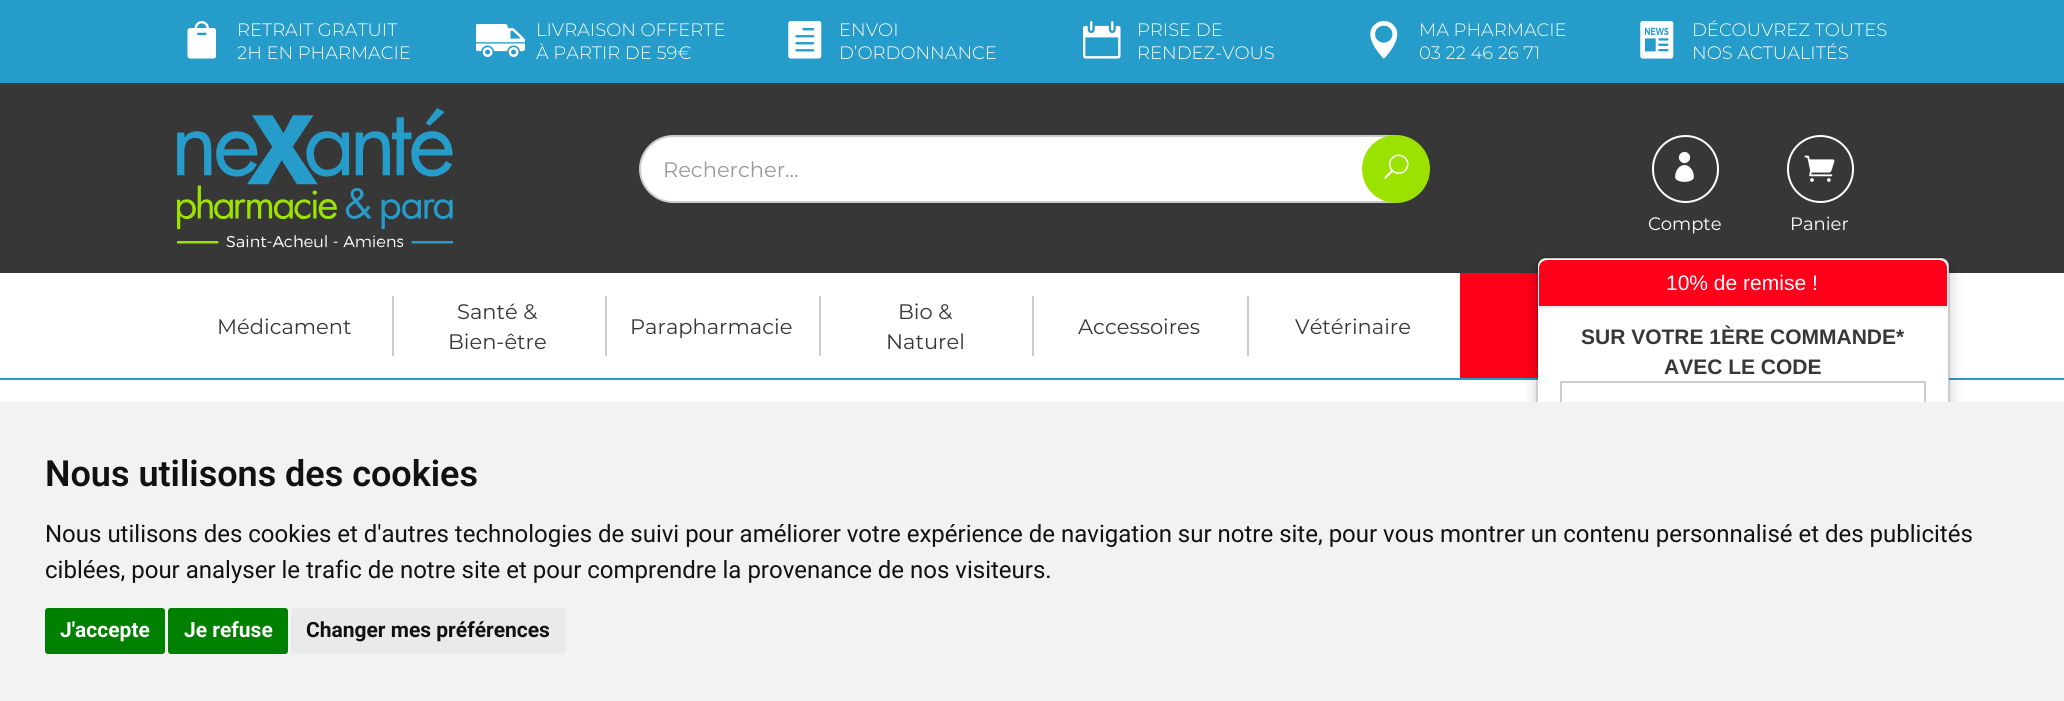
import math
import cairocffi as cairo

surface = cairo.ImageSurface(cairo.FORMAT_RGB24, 2064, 701)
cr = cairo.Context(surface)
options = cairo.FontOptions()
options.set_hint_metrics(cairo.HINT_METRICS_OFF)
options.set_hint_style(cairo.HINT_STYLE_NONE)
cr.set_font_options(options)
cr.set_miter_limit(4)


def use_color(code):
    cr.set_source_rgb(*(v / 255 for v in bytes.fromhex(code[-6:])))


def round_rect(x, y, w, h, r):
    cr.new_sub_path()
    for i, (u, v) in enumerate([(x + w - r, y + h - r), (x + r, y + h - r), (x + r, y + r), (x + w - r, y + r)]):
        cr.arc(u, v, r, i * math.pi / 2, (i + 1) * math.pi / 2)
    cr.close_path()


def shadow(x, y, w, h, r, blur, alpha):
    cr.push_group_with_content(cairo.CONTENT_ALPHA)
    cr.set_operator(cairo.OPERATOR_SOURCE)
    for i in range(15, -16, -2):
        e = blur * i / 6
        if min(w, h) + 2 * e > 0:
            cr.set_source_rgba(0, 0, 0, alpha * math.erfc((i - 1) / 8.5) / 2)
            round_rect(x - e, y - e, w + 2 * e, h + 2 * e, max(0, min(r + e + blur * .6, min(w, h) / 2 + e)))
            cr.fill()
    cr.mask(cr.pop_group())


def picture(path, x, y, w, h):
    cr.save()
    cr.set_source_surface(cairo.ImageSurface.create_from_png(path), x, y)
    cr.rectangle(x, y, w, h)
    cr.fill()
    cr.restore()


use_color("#ffffff")
cr.paint()
use_color("#269ccb")
cr.rectangle(0, 378, 2064, 2)
cr.fill()
cr.rectangle(0, 0, 2064, 83)
cr.fill()
picture("img1.png", 187, 21, 29, 38)
cr.select_font_face("Montserrat Light")
cr.set_font_size(18)
use_color("#ffffff")
cr.move_to(237, 36)
cr.show_text("RETRAIT GRATUIT")
cr.move_to(237, 59)
cr.show_text("2H EN PHARMACIE")
picture("img2.png", 476, 24, 49, 33)
cr.move_to(536, 36)
cr.show_text("LIVRAISON OFFERTE")
cr.move_to(536, 59)
cr.show_text("À PARTIR DE 59€")
picture("img3.png", 788, 21, 34, 38)
cr.move_to(839, 36)
cr.show_text("ENVOI")
cr.move_to(839, 59)
cr.show_text("D’ORDONNANCE")
picture("img4.png", 1083, 21, 38, 38)
cr.move_to(1137, 36)
cr.show_text("PRISE DE")
cr.move_to(1137, 59)
cr.show_text("RENDEZ-VOUS")
picture("img5.png", 1370, 21, 28, 38)
cr.move_to(1419, 36)
cr.show_text("MA PHARMACIE")
cr.move_to(1419, 59)
cr.show_text("03 22 46 26 71")
picture("img6.png", 1640, 21, 34, 38)
cr.move_to(1692, 36)
cr.show_text("DÉCOUVREZ TOUTES")
cr.move_to(1692, 59)
cr.show_text("NOS ACTUALITÉS")
use_color("#373737")
cr.rectangle(0, 83, 2064, 190)
cr.fill()
picture("img7.png", 177, 108, 276, 140)
use_color("#ffffff")
cr.new_path()
cr.move_to(673, 136)
cr.line_to(1397, 136)
cr.line_to(1397, 202)
cr.line_to(673, 202)
cr.curve_to(655, 202, 640, 187, 640, 169)
cr.curve_to(640, 151, 655, 136, 673, 136)
cr.close_path()
cr.fill_preserve()
use_color("#cccccc")
cr.stroke()
cr.select_font_face("Montserrat")
cr.set_font_size(21)
use_color("#999999")
cr.move_to(663, 177)
cr.show_text("Rechercher...")
use_color("#9be200")
cr.new_path()
cr.arc(1396, 169, 33, 0, 2 * math.pi)
cr.fill_preserve()
cr.stroke()
picture("img8.png", 1384, 154, 25, 25)
round_rect(1653, 136, 65, 66, 32.5)
use_color("#ffffff")
cr.stroke()
picture("img9.png", 1675, 151, 19, 31)
cr.set_font_size(18)
cr.move_to(1648, 230)
cr.show_text("Compte")
round_rect(1788, 136, 65, 66, 32.5)
cr.stroke()
picture("img10.png", 1804, 155, 31, 27)
cr.move_to(1790, 230)
cr.show_text("Panier")
cr.set_font_size(21)
use_color("#373737")
cr.move_to(217, 334)
cr.show_text("Médicament")
use_color("#cccccc")
cr.rectangle(392, 296, 2, 60)
cr.fill()
use_color("#373737")
cr.move_to(457, 319)
cr.show_text("Santé &")
cr.move_to(448, 349)
cr.show_text("Bien-être")
use_color("#cccccc")
cr.rectangle(605, 296, 2, 60)
cr.fill()
use_color("#373737")
cr.move_to(630, 334)
cr.show_text("Parapharmacie")
use_color("#cccccc")
cr.rectangle(819, 296, 2, 60)
cr.fill()
use_color("#373737")
cr.move_to(898, 319)
cr.show_text("Bio &")
cr.move_to(886, 349)
cr.show_text("Naturel")
use_color("#cccccc")
cr.rectangle(1032, 296, 2, 60)
cr.fill()
use_color("#373737")
cr.move_to(1078, 334)
cr.show_text("Accessoires")
use_color("#cccccc")
cr.rectangle(1247, 296, 2, 60)
cr.fill()
use_color("#373737")
cr.move_to(1295, 334)
cr.show_text("Vétérinaire")
use_color("#fe0019")
cr.rectangle(1460, 273, 78, 105)
cr.fill()
cr.save()
cr.set_fill_rule(cairo.FILL_RULE_EVEN_ODD)
cr.new_path()
cr.move_to(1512, 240)
cr.line_to(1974, 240)
cr.line_to(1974, 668)
cr.line_to(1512, 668)
cr.close_path()
cr.move_to(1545, 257)
cr.line_to(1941, 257)
cr.curve_to(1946, 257, 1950, 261, 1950, 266)
cr.line_to(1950, 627)
cr.curve_to(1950, 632, 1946, 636, 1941, 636)
cr.line_to(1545, 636)
cr.curve_to(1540, 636, 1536, 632, 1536, 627)
cr.line_to(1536, 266)
cr.curve_to(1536, 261, 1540, 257, 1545, 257)
cr.close_path()
cr.clip()
use_color("#000000")
shadow(1536, 264, 414, 380, 9, 7.5, 0.2)
cr.restore()
use_color("#ffffff")
round_rect(1538, 258, 411, 377, 8)
cr.fill()
round_rect(1537, 258, 412, 377, 8)
cr.set_source_rgba(0, 0, 0, 0.2)
cr.stroke()
use_color("#fe0019")
cr.new_path()
cr.move_to(1547, 260)
cr.line_to(1939, 260)
cr.curve_to(1943.5, 260, 1947, 263.5, 1947, 268)
cr.line_to(1947, 308)
cr.line_to(1539, 308)
cr.line_to(1539, 268)
cr.curve_to(1539, 263.5, 1542.5, 260, 1547, 260)
cr.close_path()
cr.fill()
use_color("#ebebeb")
cr.rectangle(1539, 306, 408, 2)
cr.fill()
cr.select_font_face("Liberation Sans")
use_color("#ffffff")
cr.move_to(1666, 290)
cr.show_text("10% de remise !")
cr.select_font_face("Liberation Sans", cairo.FONT_SLANT_NORMAL, cairo.FONT_WEIGHT_BOLD)
use_color("#373737")
cr.move_to(1581, 344)
cr.show_text("SUR VOTRE 1ÈRE COMMANDE*")
cr.move_to(1664, 374)
cr.show_text("AVEC LE CODE")
cr.rectangle(1561, 382, 364, 49)
use_color("#cccccc")
cr.stroke()
use_color("#f2f2f2")
cr.rectangle(0, 402, 2064, 299)
cr.fill()
cr.select_font_face("Roboto SemiBold")
cr.set_font_size(36)
use_color("#111111")
cr.move_to(45, 486)
cr.show_text("Nous utilisons des cookies")
cr.select_font_face("Roboto")
cr.set_font_size(24)
cr.move_to(45, 542)
cr.show_text("Nous utilisons des cookies et d'autres technologies de suivi pour améliorer votre expérience de navigation sur notre site, pour vous montrer un contenu personnalisé et des publicités")
cr.move_to(45, 578)
cr.show_text("ciblées, pour analyser le trafic de notre site et pour comprendre la provenance de nos visiteurs.")
use_color("#008000")
round_rect(45, 608, 120, 46, 3)
cr.fill()
cr.select_font_face("Roboto", cairo.FONT_SLANT_NORMAL, cairo.FONT_WEIGHT_BOLD)
cr.set_font_size(21)
use_color("#ffffff")
cr.move_to(60, 637)
cr.show_text("J'accepte")
use_color("#008000")
round_rect(168, 608, 120, 46, 3)
cr.fill()
use_color("#ffffff")
cr.move_to(184, 637)
cr.show_text("Je refuse")
use_color("#eaeaea")
round_rect(291, 608, 275, 46, 3)
cr.fill()
use_color("#111111")
cr.move_to(306, 637)
cr.show_text("Changer mes préférences")
surface.write_to_png("result.png")
